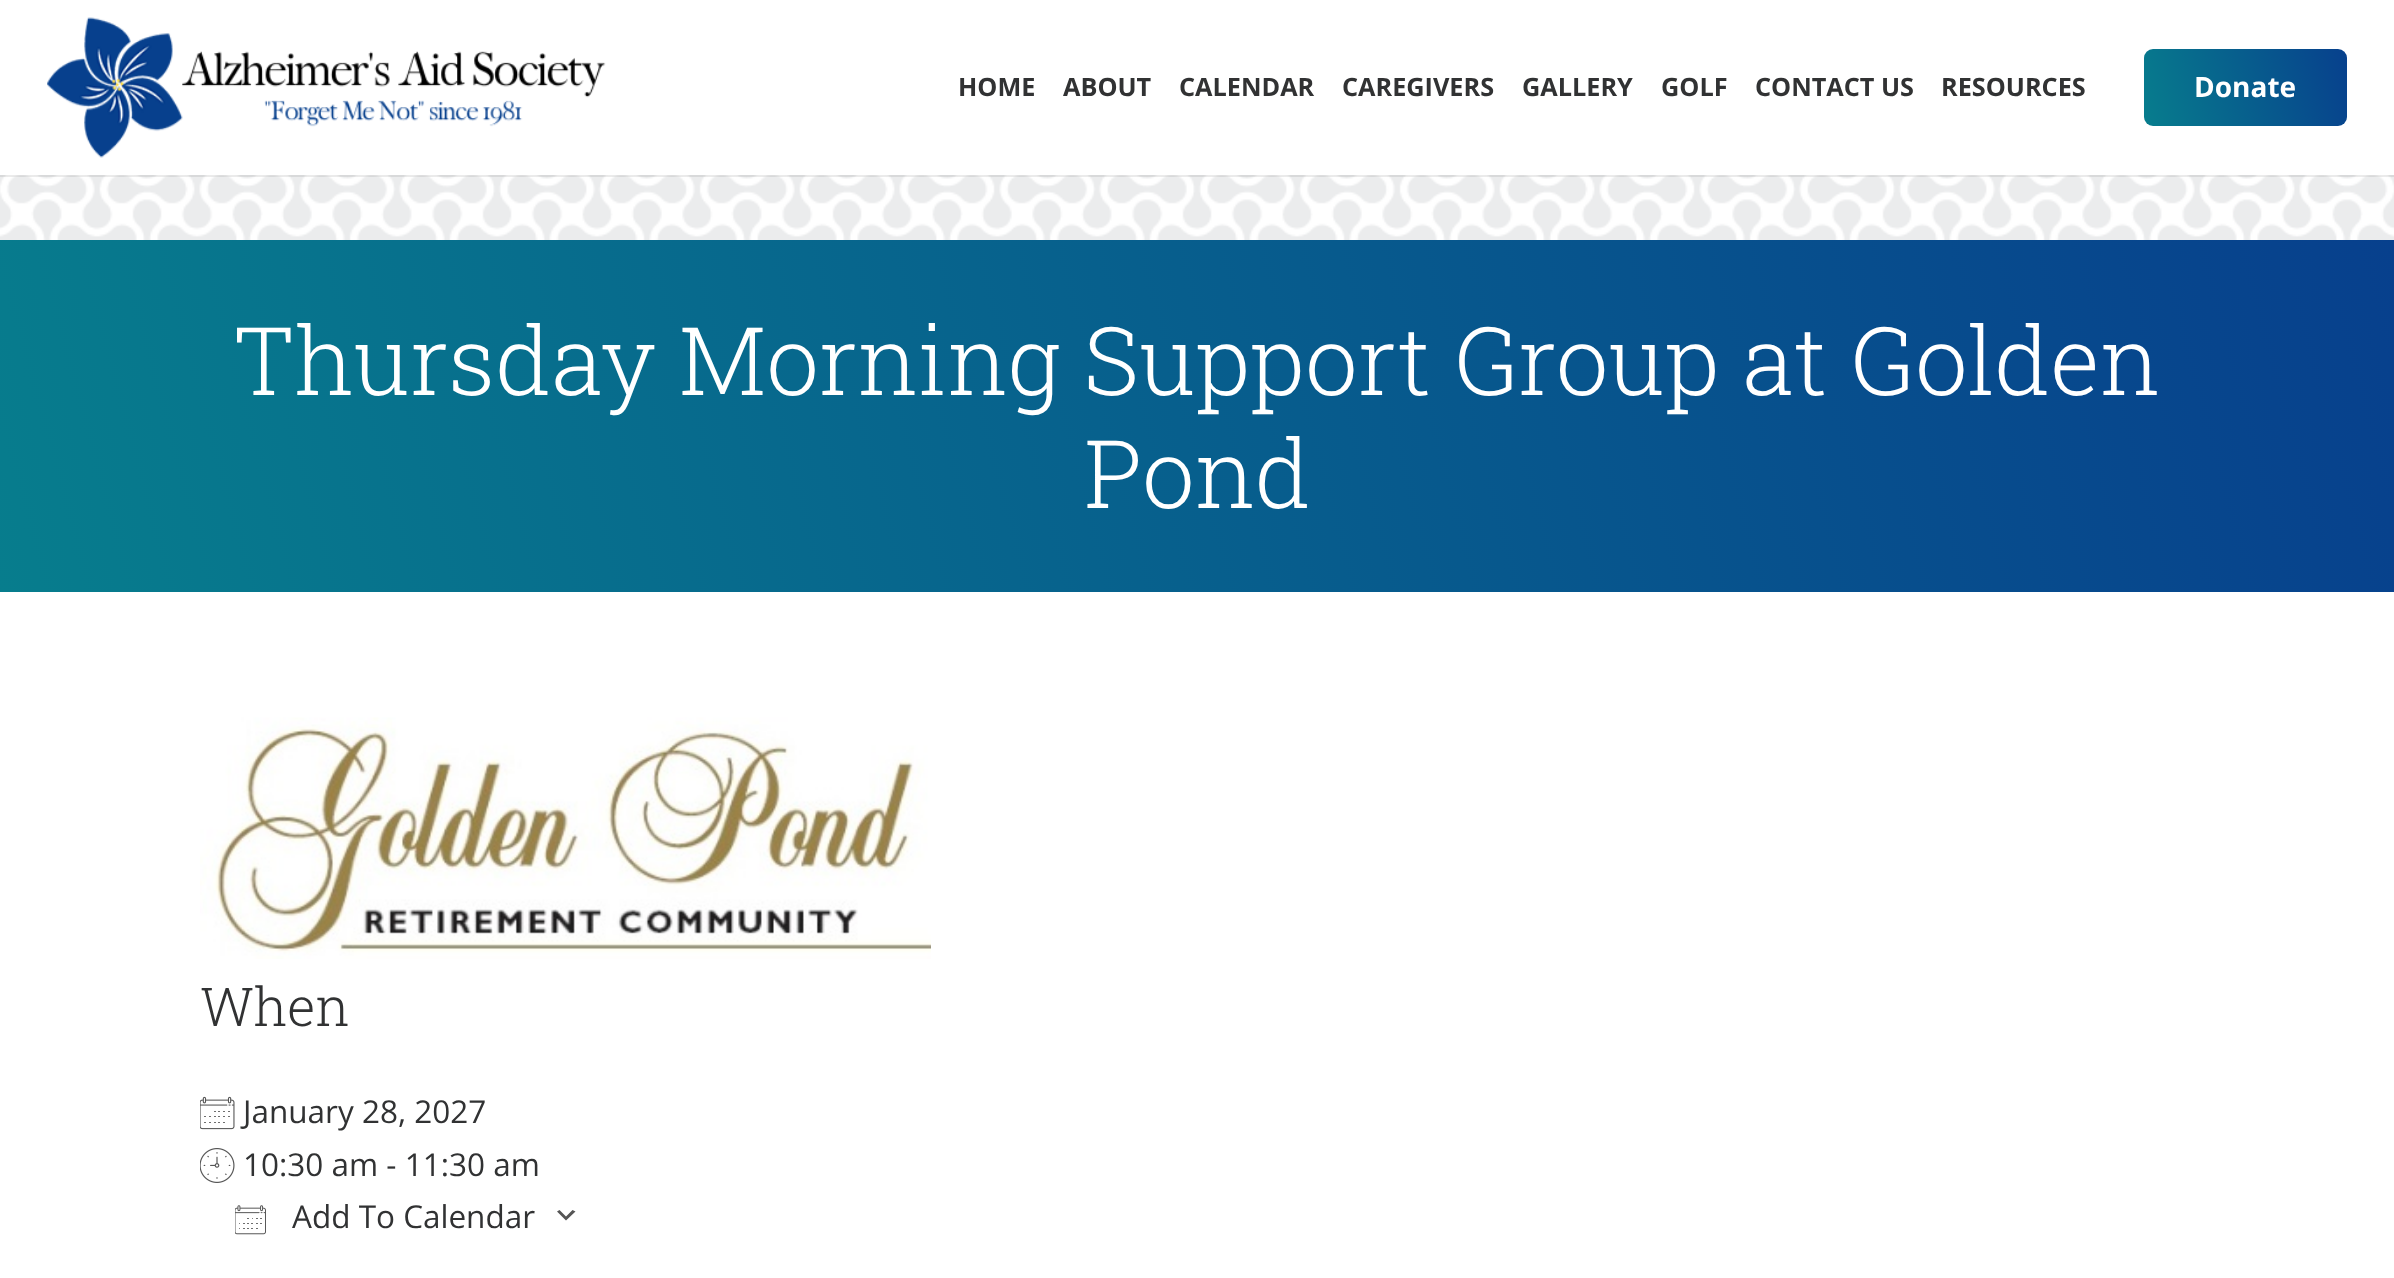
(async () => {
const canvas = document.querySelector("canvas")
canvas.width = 2394
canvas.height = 1278
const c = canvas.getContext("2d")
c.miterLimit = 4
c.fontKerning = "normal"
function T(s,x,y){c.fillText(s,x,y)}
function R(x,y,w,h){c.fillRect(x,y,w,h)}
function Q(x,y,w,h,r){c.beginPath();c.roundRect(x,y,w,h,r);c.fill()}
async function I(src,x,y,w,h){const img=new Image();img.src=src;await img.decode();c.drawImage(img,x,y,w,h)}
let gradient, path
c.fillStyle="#fff"
R(0,0,2394,1278)
await I("2.png",0,175,2394,65)
c.fillStyle="#00000014"
R(0,175,2394,2)
await I("1.png",47,17,559,141)
c.font="bold 25.25px Open Sans"
c.fillStyle="#313233"
T("HOME",958,96)
T("ABOUT",1063,96)
T("CALENDAR",1179,96)
T("CAREGIVERS",1342,96)
T("GALLERY",1522,96)
T("GOLF",1661,96)
T("CONTACT US",1755,96)
T("RESOURCES",1941,96)
gradient = c.createLinearGradient(2141,115,2350,60)
gradient.addColorStop(0,"#077d8d")
gradient.addColorStop(1,"#07408d")
c.fillStyle = gradient
Q(2144,49,203,77,9)
c.font="bold 28px Open Sans"
c.fillStyle="#fff"
T("Donate",2194,97)
gradient = c.createLinearGradient(36,727,2358,105)
gradient.addColorStop(0,"#077d8d")
gradient.addColorStop(1,"#07408d")
c.fillStyle = gradient
R(0,240,2394,352)
c.font="300 94.5px Roboto Slab"
c.fillStyle="#fff"
T("Thursday Morning Support Group at Golden",233,395)
T("Pond",1084,508)
await I("3.png",200,717,731,242)
c.font="300 53.5px Roboto Slab"
c.fillStyle="#313233"
T("When",200,1026)
await I("4.png",200,1096,35,34)
c.font="31.5px Open Sans"
T("January 28, 2027",243,1123)
await I("5.png",200,1148,35,35)
T("10:30 am - 11:30 am",243,1176)
c.fillStyle="#555"
path = new Path2D("M559.5 1210l6.5 6.5l6.5-6.5l3 1.5l-9.5 9l-9-9z")
c.fill(path)
await I("6.png",235,1205,31,30)
c.fillStyle="#313233"
T("Add To Calendar",292,1228)
})()
